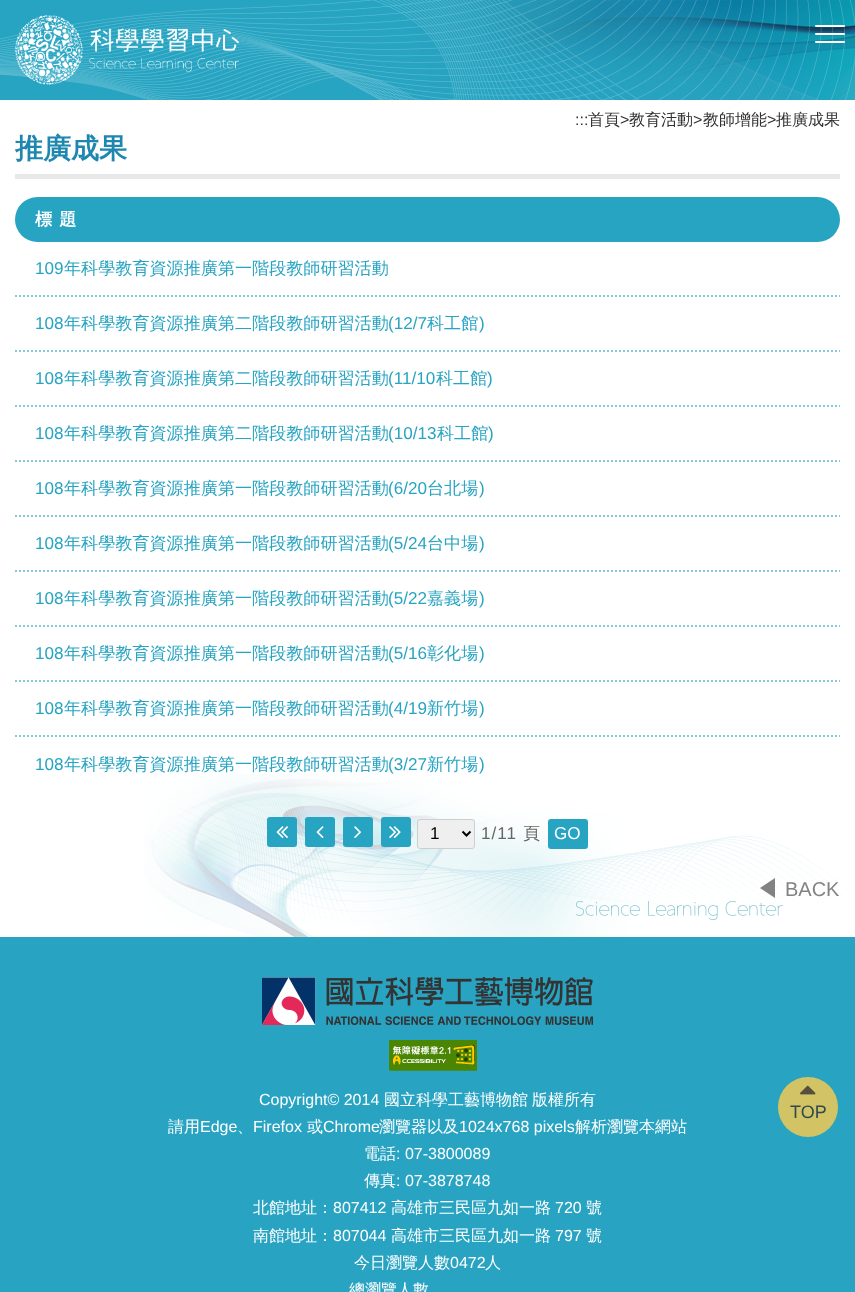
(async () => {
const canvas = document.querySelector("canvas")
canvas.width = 855
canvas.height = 1292
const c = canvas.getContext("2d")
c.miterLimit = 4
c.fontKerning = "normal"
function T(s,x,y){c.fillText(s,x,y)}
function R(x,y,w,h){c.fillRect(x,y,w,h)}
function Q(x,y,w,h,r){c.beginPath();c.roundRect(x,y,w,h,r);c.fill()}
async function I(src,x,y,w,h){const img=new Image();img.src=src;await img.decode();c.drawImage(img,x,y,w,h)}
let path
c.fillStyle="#fff"
R(0,0,855,1292)
await I("1.png",0,0,855,100)
await I("2.png",15,15,224,70)
Q(815,25,30,2,1)
Q(815,33,30,2,1)
Q(815,41,30,2,1)
await I("3.png",706,100,38,21)
c.fillStyle="#e8e8e8"
R(15,174,825,5)
c.font="16px Liberation Sans"
c.fillStyle="#313131"
T(":::",575,125)
c.font="500 16px WenQuanYi Zen Hei"
T("首頁",588,125)
c.font="16px Liberation Sans"
T(">",620,125)
c.font="500 16px WenQuanYi Zen Hei"
T("教育活動",629,125)
c.font="16px Liberation Sans"
T(">",693,125)
c.font="500 16px WenQuanYi Zen Hei"
T("教師增能",703,125)
c.font="16px Liberation Sans"
T(">",767,125)
c.font="500 16px WenQuanYi Zen Hei"
T("推廣成果",776,125)
c.font="bold 28px WenQuanYi Zen Hei"
c.fillStyle="#1e87b0"
T("推廣成果",15,158)
c.fillStyle="#27a4c2"
Q(15,197,825,45,22.5)
c.letterSpacing="1px"
c.font="bold 17.1px WenQuanYi Zen Hei"
c.fillStyle="#fff"
T("標 題",35,225)
path = new Path2D("M15 296h825")
c.strokeStyle="#86cada"
c.lineWidth=2
c.setLineDash([2,2])
c.stroke(path)
c.letterSpacing="0px"
c.font="17.1px Liberation Sans"
c.fillStyle="#27a4c2"
T("109",35,274)
c.font="500 17.1px WenQuanYi Zen Hei"
T("年科學教育資源推廣第一階段教師研習活動",64,274)
path = new Path2D("M15 351h825")
c.stroke(path)
c.font="17.1px Liberation Sans"
T("108",35,329)
c.font="500 17.1px WenQuanYi Zen Hei"
T("年科學教育資源推廣第二階段教師研習活動",64,329)
c.font="17.1px Liberation Sans"
T("(12/7",388,329)
c.font="500 17.1px WenQuanYi Zen Hei"
T("科工館",427,329)
c.font="17.1px Liberation Sans"
T(")",479,329)
path = new Path2D("M15 406h825")
c.stroke(path)
T("108",35,384)
c.font="500 17.1px WenQuanYi Zen Hei"
T("年科學教育資源推廣第二階段教師研習活動",64,384)
c.font="17.1px Liberation Sans"
T("(11/10",388,384)
c.font="500 17.1px WenQuanYi Zen Hei"
T("科工館",436,384)
c.font="17.1px Liberation Sans"
T(")",487,384)
path = new Path2D("M15 461h825")
c.stroke(path)
T("108",35,439)
c.font="500 17.1px WenQuanYi Zen Hei"
T("年科學教育資源推廣第二階段教師研習活動",64,439)
c.font="17.1px Liberation Sans"
T("(10/13",388,439)
c.font="500 17.1px WenQuanYi Zen Hei"
T("科工館",437,439)
c.font="17.1px Liberation Sans"
T(")",488,439)
path = new Path2D("M15 516h825")
c.stroke(path)
T("108",35,494)
c.font="500 17.1px WenQuanYi Zen Hei"
T("年科學教育資源推廣第一階段教師研習活動",64,494)
c.font="17.1px Liberation Sans"
T("(6/20",388,494)
c.font="500 17.1px WenQuanYi Zen Hei"
T("台北場",427,494)
c.font="17.1px Liberation Sans"
T(")",479,494)
path = new Path2D("M15 571h825")
c.stroke(path)
T("108",35,549)
c.font="500 17.1px WenQuanYi Zen Hei"
T("年科學教育資源推廣第一階段教師研習活動",64,549)
c.font="17.1px Liberation Sans"
T("(5/24",388,549)
c.font="500 17.1px WenQuanYi Zen Hei"
T("台中場",427,549)
c.font="17.1px Liberation Sans"
T(")",479,549)
path = new Path2D("M15 626h825")
c.stroke(path)
T("108",35,604)
c.font="500 17.1px WenQuanYi Zen Hei"
T("年科學教育資源推廣第一階段教師研習活動",64,604)
c.font="17.1px Liberation Sans"
T("(5/22",388,604)
c.font="500 17.1px WenQuanYi Zen Hei"
T("嘉義場",427,604)
c.font="17.1px Liberation Sans"
T(")",479,604)
path = new Path2D("M15 681h825")
c.stroke(path)
T("108",35,659)
c.font="500 17.1px WenQuanYi Zen Hei"
T("年科學教育資源推廣第一階段教師研習活動",64,659)
c.font="17.1px Liberation Sans"
T("(5/16",388,659)
c.font="500 17.1px WenQuanYi Zen Hei"
T("彰化場",427,659)
c.font="17.1px Liberation Sans"
T(")",479,659)
path = new Path2D("M15 736h825")
c.stroke(path)
T("108",35,714)
c.font="500 17.1px WenQuanYi Zen Hei"
T("年科學教育資源推廣第一階段教師研習活動",64,714)
c.font="17.1px Liberation Sans"
T("(4/19",388,714)
c.font="500 17.1px WenQuanYi Zen Hei"
T("新竹場",427,714)
c.font="17.1px Liberation Sans"
T(")",479,714)
T("108",35,770)
c.font="500 17.1px WenQuanYi Zen Hei"
T("年科學教育資源推廣第一階段教師研習活動",64,770)
c.font="17.1px Liberation Sans"
T("(3/27",388,770)
c.font="500 17.1px WenQuanYi Zen Hei"
T("新竹場",427,770)
c.font="17.1px Liberation Sans"
T(")",479,770)
await I("9.png",144,774,706,163)
Q(267,817,30,30,3)
await I("4.png",276,826,12,12)
Q(305,817,30,30,3)
await I("5.png",316,826,8,12)
Q(343,817,30,30,3)
await I("6.png",354,826,7,12)
Q(381,817,30,30,3)
await I("7.png",389,826,12,12)
c.fillStyle="#efefef"
c.beginPath()
c.roundRect(417.5,819.5,57,29,2.5)
c.fill()
c.strokeStyle="#cecece"
c.lineWidth=1
c.setLineDash([])
c.stroke()
path = new Path2D("M462.5 831.5l4 4l4-4")
c.strokeStyle="#000"
c.lineWidth=2
c.stroke(path)
c.fillStyle="#000"
T("1",430,839)
c.letterSpacing="1px"
c.fillStyle="#666"
T("1/11",481,839)
c.font="500 17.1px WenQuanYi Zen Hei"
T("頁",523,839)
c.fillStyle="#27a4c2"
Q(548,819,40,30,3)
c.letterSpacing="0px"
c.font="17.1px Liberation Sans"
c.fillStyle="#fff"
T("GO",554,839)
c.fillStyle="#828282"
path = new Path2D("M775 878v20l-15-10z")
c.fill(path)
c.font="20px Liberation Sans"
T("BACK",785,896)
c.fillStyle="#28a4c2"
R(0,937,855,355)
c.fillStyle="#d2c365"
c.beginPath()
c.arc(808,1107,30,0,7)
c.fill()
await I("8.png",800,1085,16,10)
c.font="18px Liberation Sans"
c.fillStyle="#314a50"
T("TOP",790,1118)
await I("10.png",262,977,331,48)
await I("11.png",389,1040,88,31)
c.font="16px Liberation Sans"
c.fillStyle="#fff"
T("Copyright© 2014",259,1105)
c.font="500 16px WenQuanYi Zen Hei"
T("國立科學工藝博物館",384,1105)
T("版權所有",532,1105)
T("請用",168,1132)
c.font="16px Liberation Sans"
T("Edge",200,1132)
c.font="500 16px WenQuanYi Zen Hei"
T("、",237,1132)
c.font="16px Liberation Sans"
T("Firefox",253,1132)
c.font="500 16px WenQuanYi Zen Hei"
T("或",307,1132)
c.font="16px Liberation Sans"
T("Chrome",323,1132)
c.font="500 16px WenQuanYi Zen Hei"
T("瀏覽器以及",379,1132)
c.font="16px Liberation Sans"
T("1024x768 pixels",459,1132)
c.font="500 16px WenQuanYi Zen Hei"
T("解析瀏覽本網站",575,1132)
T("電話",364,1159)
c.font="16px Liberation Sans"
T(": 07-3800089",396,1159)
c.font="500 16px WenQuanYi Zen Hei"
T("傳真",364,1186)
c.font="16px Liberation Sans"
T(": 07-3878748",396,1186)
c.font="500 16px WenQuanYi Zen Hei"
T("北館地址：",253,1213)
c.font="16px Liberation Sans"
T("807412",333,1213)
c.font="500 16px WenQuanYi Zen Hei"
T("高雄市三民區九如一路",391,1213)
c.font="16px Liberation Sans"
T("720",555,1213)
c.font="500 16px WenQuanYi Zen Hei"
T("號",586,1213)
T("南館地址：",253,1241)
c.font="16px Liberation Sans"
T("807044",333,1241)
c.font="500 16px WenQuanYi Zen Hei"
T("高雄市三民區九如一路",391,1241)
c.font="16px Liberation Sans"
T("797",555,1241)
c.font="500 16px WenQuanYi Zen Hei"
T("號",586,1241)
T("今日瀏覽人數",354,1268)
c.font="16px Liberation Sans"
T("0472",450,1268)
c.font="500 16px WenQuanYi Zen Hei"
T("人",485,1268)
T("總瀏覽人數",349,1295)
})()
